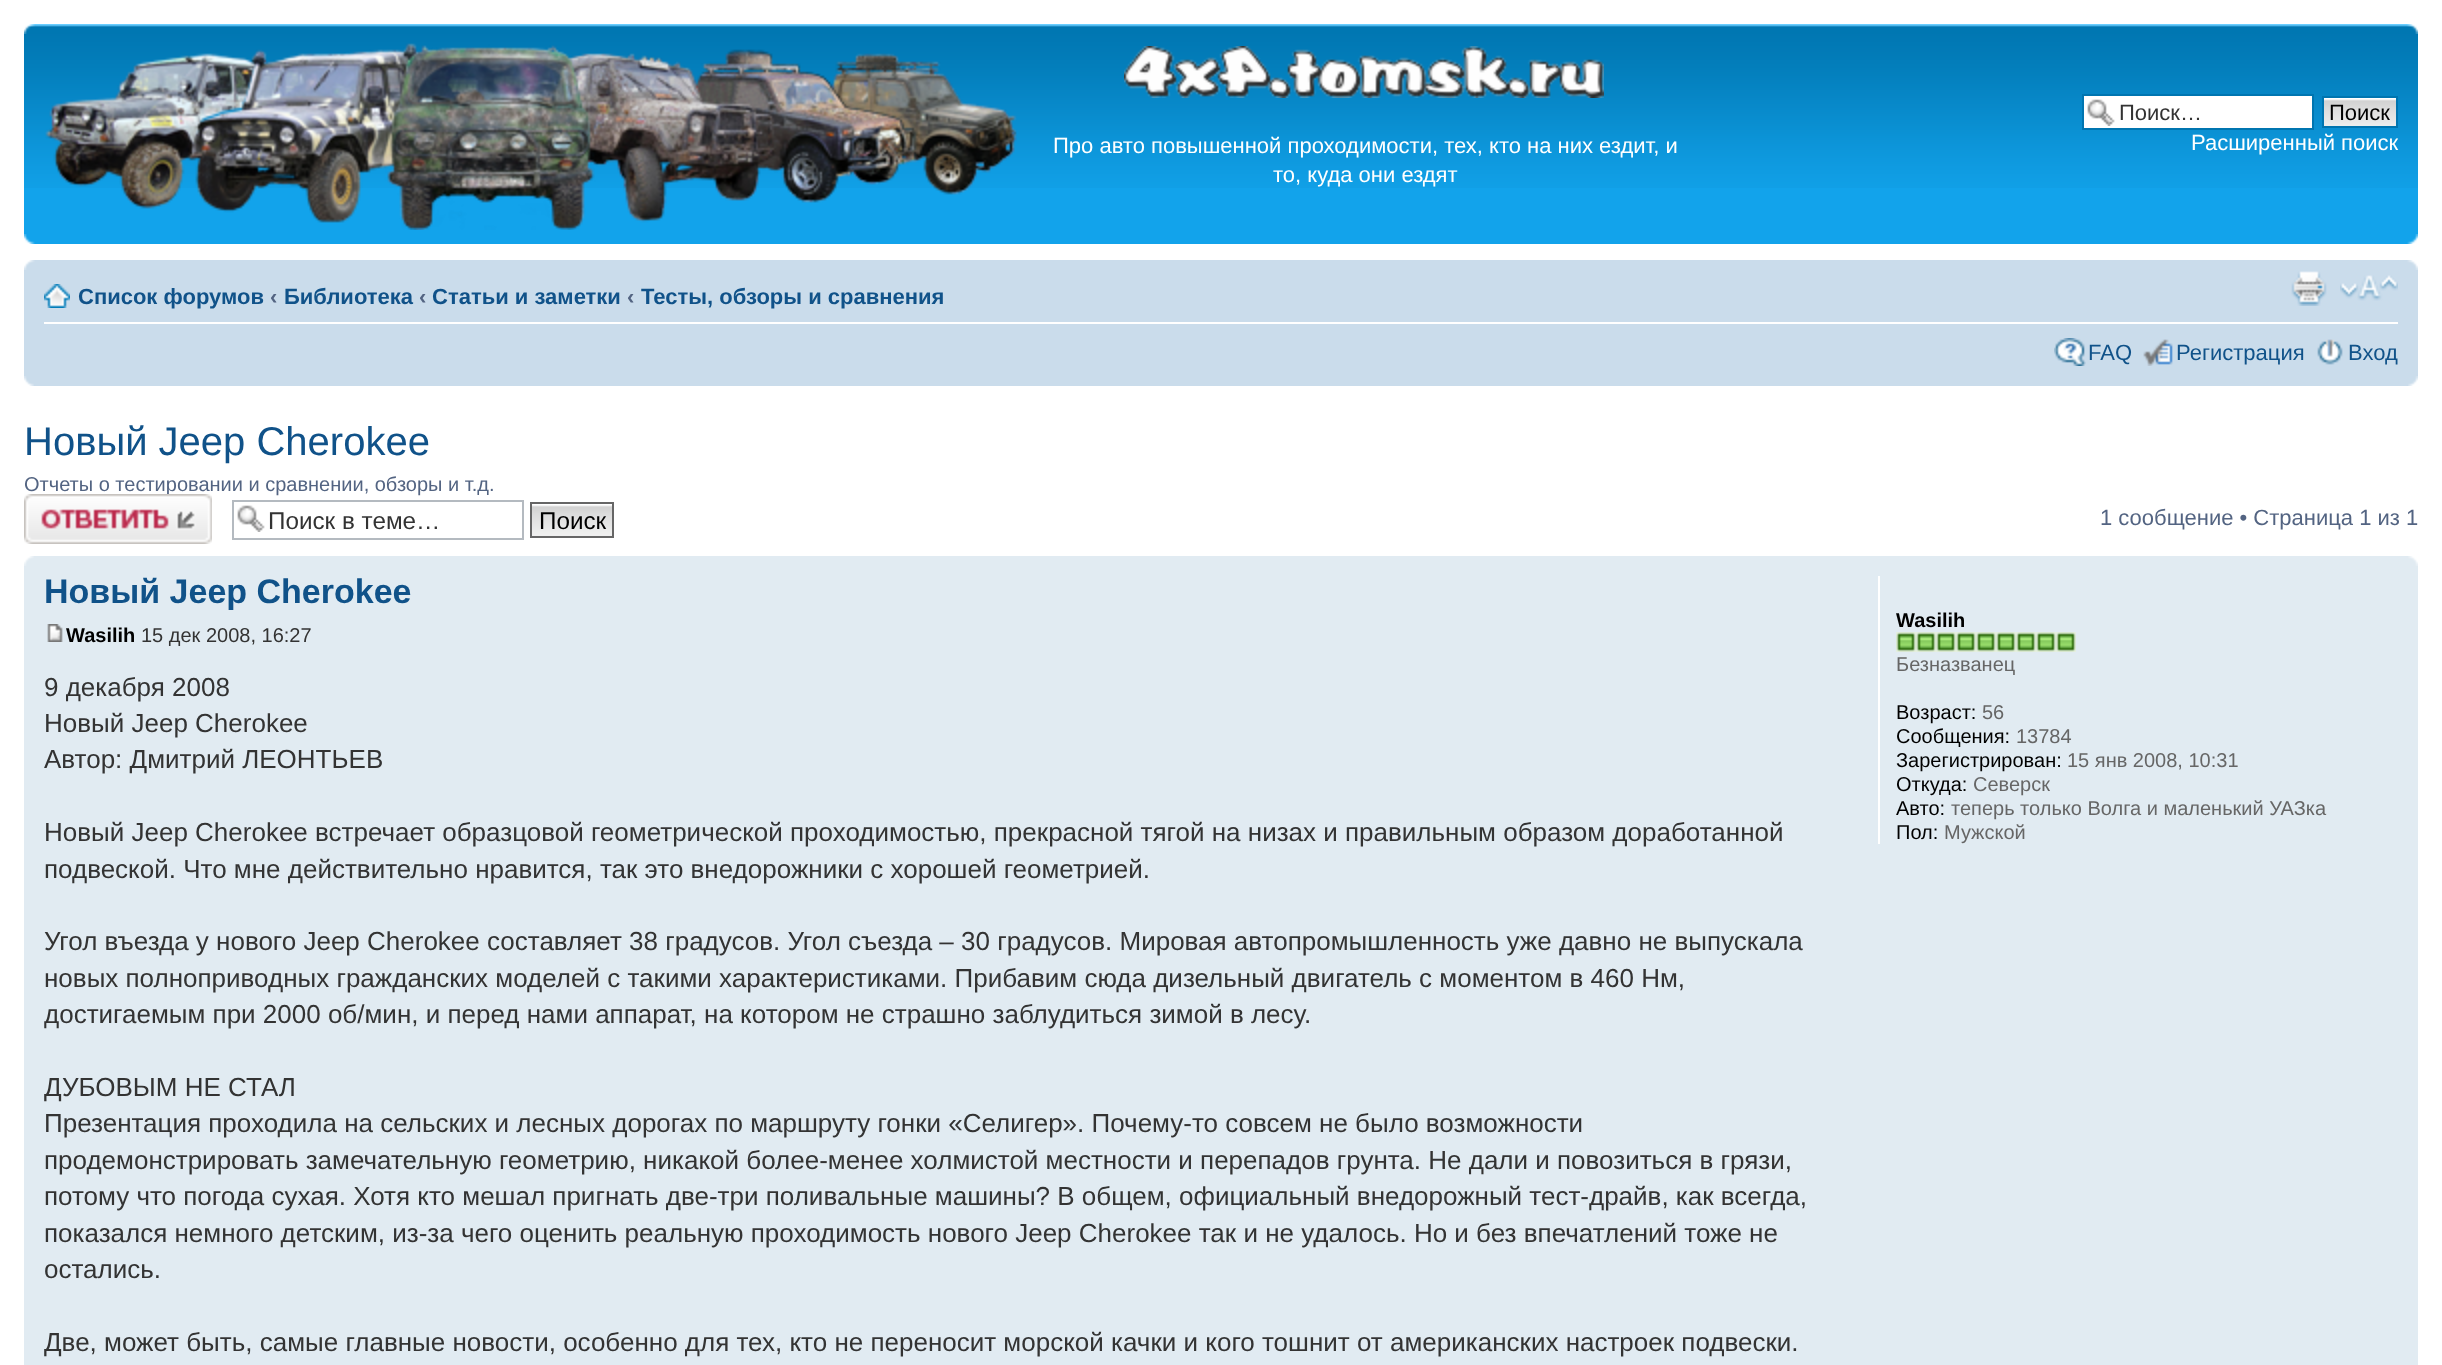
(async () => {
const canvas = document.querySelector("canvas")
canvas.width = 2442
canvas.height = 1365
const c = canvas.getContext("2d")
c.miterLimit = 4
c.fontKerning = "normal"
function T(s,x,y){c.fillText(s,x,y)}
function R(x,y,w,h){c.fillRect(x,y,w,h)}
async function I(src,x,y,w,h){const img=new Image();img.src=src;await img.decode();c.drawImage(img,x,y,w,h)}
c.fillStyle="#fff"
R(0,0,2442,1365)
c.fillStyle="#12a3eb"
R(24,188,2394,56)
await I("1.png",24,24,2394,164)
await I("2.png",24,24,11,10)
await I("3.png",2407,24,11,10)
c.fillStyle="#fff"
R(2084,96,228,32)
await I("4.png",2087,99,28,27)
c.strokeStyle="#0075b0"
c.lineWidth=2
c.strokeRect(2083,95,230,34)
c.font="22px Liberation Sans"
c.fillStyle="#333"
T("Поиск…",2119,120)
await I("5.png",2324,98,72,28)
c.strokeRect(2323,97,74,30)
c.fillStyle="#000"
T("Поиск",2329,120)
c.fillStyle="#fff"
T("Расширенный поиск",2191,150)
await I("6.png",45,43,972,187)
await I("7.png",1124,46,480,52)
T("Про авто повышенной проходимости, тех, кто на них ездит, и",1053,153)
T("то, куда они ездят",1273,182)
await I("8.png",24,234,11,10)
await I("9.png",2407,234,11,10)
c.fillStyle="#cadceb"
R(24,260,2394,126)
await I("10.png",24,260,11,10)
await I("11.png",2407,260,11,10)
c.fillStyle="#fff"
R(44,322,2354,2)
await I("12.png",44,284,26,24)
c.font="bold 22px Liberation Sans"
c.fillStyle="#105289"
T("Список форумов",78,304)
c.fillStyle="#536482"
T("‹",270,304)
c.fillStyle="#105289"
T("Библиотека",284,304)
c.fillStyle="#536482"
T("‹",419,304)
c.fillStyle="#105289"
T("Статьи и заметки",432,304)
c.fillStyle="#536482"
T("‹",627,304)
c.fillStyle="#105289"
T("Тесты, обзоры и сравнения",641,304)
await I("13.png",2291,271,36,35)
await I("14.png",2340,275,58,26)
await I("15.png",2054,338,32,28)
c.font="22px Liberation Sans"
T("FAQ",2088,360)
await I("16.png",2143,339,30,27)
T("Регистрация",2176,360)
await I("17.png",2317,339,26,26)
T("Вход",2348,360)
await I("18.png",24,376,10,10)
await I("19.png",2408,376,10,10)
c.font="40px Liberation Sans"
T("Новый Jeep Cherokee",24,455)
c.font="20px Liberation Sans"
c.fillStyle="#536482"
T("Отчеты о тестировании и сравнении, обзоры и т.д.",24,491)
await I("20.png",24,494,188,50)
await I("4.png",237,505,28,27)
c.strokeStyle="#b4bac0"
c.strokeRect(233,501,290,38)
c.font="24.25px Liberation Sans"
c.fillStyle="#333"
T("Поиск в теме…",268,529)
await I("21.png",532,504,80,32)
c.strokeStyle="#666"
c.strokeRect(531,503,82,34)
c.fillStyle="#000"
T("Поиск",539,529)
c.font="22px Liberation Sans"
c.fillStyle="#536482"
T("1 сообщение • Страница 1 из 1",2100,525)
c.fillStyle="#e1ebf2"
R(24,556,2394,809)
await I("22.png",24,556,10,10)
await I("23.png",2408,556,10,10)
c.font="bold 34px Liberation Sans"
c.fillStyle="#105289"
T("Новый Jeep Cherokee",44,603)
await I("24.png",47,624,16,18)
c.font="bold 20px Liberation Sans"
c.fillStyle="#000"
T("Wasilih",66,642)
c.font="20px Liberation Sans"
c.fillStyle="#333"
T("15 дек 2008, 16:27",141,642)
c.font="26px Liberation Sans"
T("9 декабря 2008",44,696)
T("Новый Jeep Cherokee",44,732)
T("Автор: Дмитрий ЛЕОНТЬЕВ",44,768)
T("Новый Jeep Cherokee встречает образцовой геометрической проходимостью, прекрасной тягой на низах и правильным образом доработанной",44,841)
T("подвеской. Что мне действительно нравится, так это внедорожники с хорошей геометрией.",44,878)
T("Угол въезда у нового Jeep Cherokee составляет 38 градусов. Угол съезда – 30 градусов. Мировая автопромышленность уже давно не выпускала",44,950)
T("новых полноприводных гражданских моделей с такими характеристиками. Прибавим сюда дизельный двигатель с моментом в 460 Нм,",44,987)
T("достигаемым при 2000 об/мин, и перед нами аппарат, на котором не страшно заблудиться зимой в лесу.",44,1023)
T("ДУБОВЫМ НЕ СТАЛ",44,1096)
T("Презентация проходила на сельских и лесных дорогах по маршруту гонки «Селигер». Почему-то совсем не было возможности",44,1132)
T("продемонстрировать замечательную геометрию, никакой более-менее холмистой местности и перепадов грунта. Не дали и повозиться в грязи,",44,1169)
T("потому что погода сухая. Хотя кто мешал пригнать две-три поливальные машины? В общем, официальный внедорожный тест-драйв, как всегда,",44,1205)
T("показался немного детским, из-за чего оценить реальную проходимость нового Jeep Cherokee так и не удалось. Но и без впечатлений тоже не",44,1242)
T("остались.",44,1278)
T("Две, может быть, самые главные новости, особенно для тех, кто не переносит морской качки и кого тошнит от американских настроек подвески.",44,1351)
c.fillStyle="#fff"
R(1878,576,2,268)
c.font="bold 20px Liberation Sans"
c.fillStyle="#000"
T("Wasilih",1896,627)
await I("25.png",1896,632,20,20)
await I("25.png",1916,632,20,20)
await I("25.png",1936,632,20,20)
await I("25.png",1956,632,20,20)
await I("25.png",1976,632,20,20)
await I("25.png",1996,632,20,20)
await I("25.png",2016,632,20,20)
await I("25.png",2036,632,20,20)
await I("25.png",2056,632,20,20)
c.font="20px Liberation Sans"
c.fillStyle="#666"
T("Безназванец",1896,671)
c.fillStyle="#000"
T("Возраст:",1896,719)
c.fillStyle="#666"
T("56",1982,719)
c.fillStyle="#000"
T("Сообщения:",1896,743)
c.fillStyle="#666"
T("13784",2016,743)
c.fillStyle="#000"
T("Зарегистрирован:",1896,767)
c.fillStyle="#666"
T("15 янв 2008, 10:31",2067,767)
c.fillStyle="#000"
T("Откуда:",1896,791)
c.fillStyle="#666"
T("Северск",1973,791)
c.fillStyle="#000"
T("Авто:",1896,815)
c.fillStyle="#666"
T("теперь только Волга и маленький УАЗка",1951,815)
c.fillStyle="#000"
T("Пол:",1896,839)
c.fillStyle="#666"
T("Мужской",1944,839)
})()
